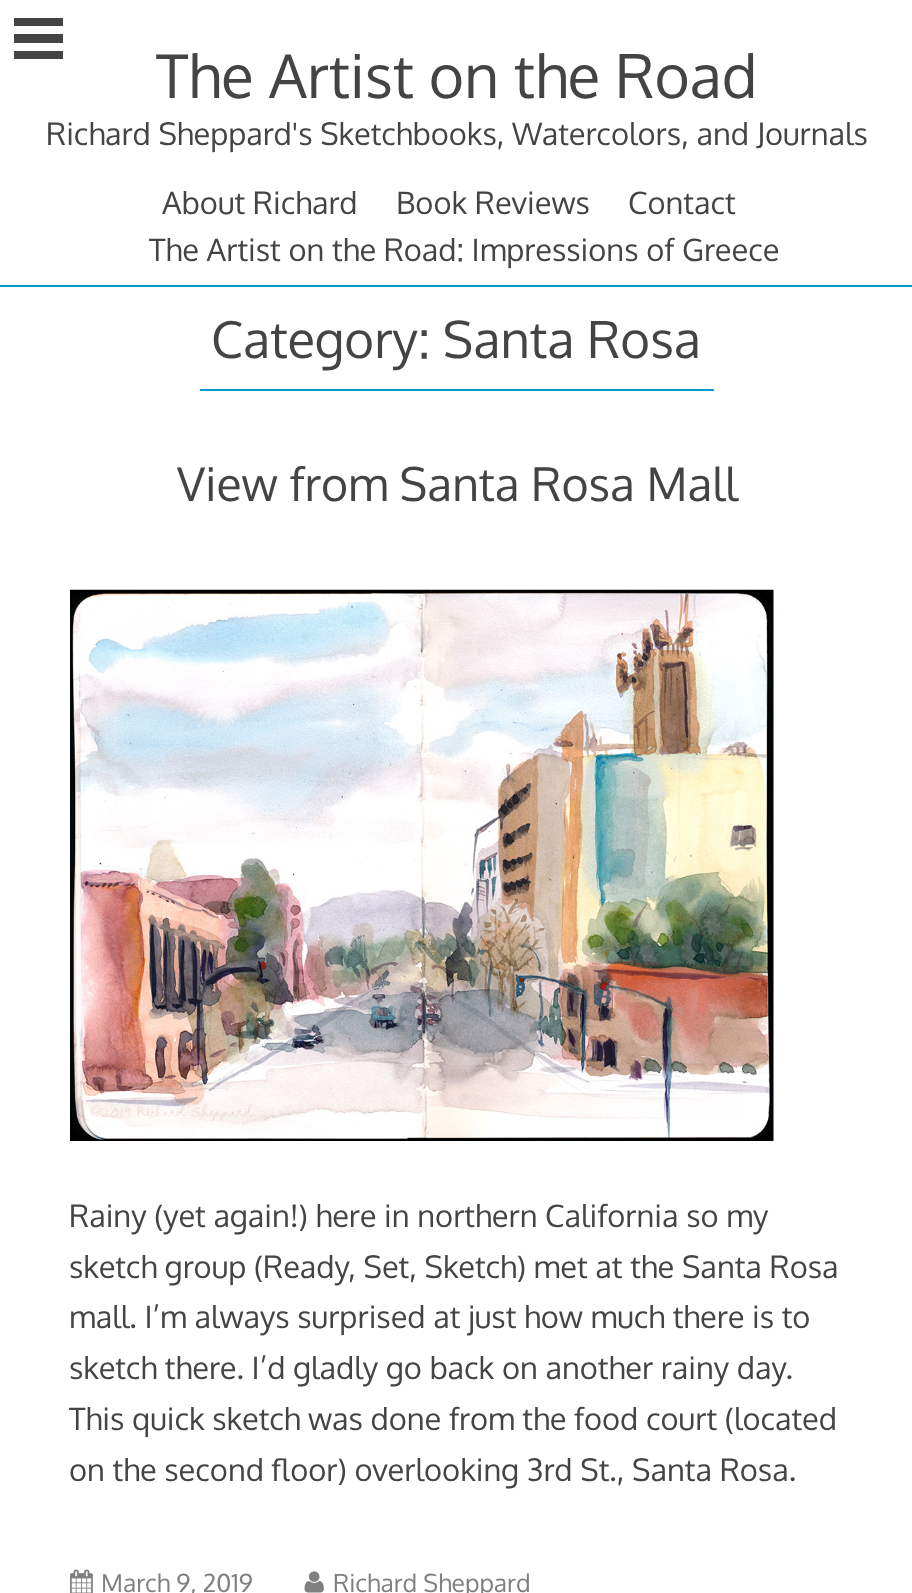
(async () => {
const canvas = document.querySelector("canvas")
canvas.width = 912
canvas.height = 1593
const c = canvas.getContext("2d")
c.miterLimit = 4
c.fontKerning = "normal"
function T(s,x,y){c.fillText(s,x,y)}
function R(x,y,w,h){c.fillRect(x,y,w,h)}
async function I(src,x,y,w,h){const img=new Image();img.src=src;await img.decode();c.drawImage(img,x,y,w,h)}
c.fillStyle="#fff"
R(0,0,912,1593)
c.fillStyle="#444"
R(14,18,49,8)
R(14,34,49,9)
R(14,51,49,8)
c.fillStyle="#009bcd"
R(0,285,912,2)
c.font="60.25px Oxygen"
c.fillStyle="#444"
T("The Artist on the Road",156,98)
c.font="30.8px Oxygen"
T("Richard Sheppard's Sketchbooks, Watercolors, and Journals",46,145)
T("About Richard",162,214)
T("Book Reviews",396,214)
T("Contact",628,214)
T("The Artist on the Road: Impressions of Greece",149,261)
c.fillStyle="#009bcd"
R(200,389,514,2)
c.font="50.75px Oxygen"
c.fillStyle="#444"
T("Category: Santa Rosa",211,358)
c.font="46.25px Oxygen"
T("View from Santa Rosa Mall",177,501)
await I("1.png",70,589,704,552)
c.font="30.8px Oxygen"
T("Rainy (yet again!) here in northern California so my",69,1227)
T("sketch group (Ready, Set, Sketch) met at the Santa Rosa",69,1278)
T("mall. I’m always surprised at just how much there is to",69,1328)
T("sketch there. I’d gladly go back on another rainy day.",69,1379)
T("This quick sketch was done from the food court (located",69,1430)
T("on the second floor) overlooking 3rd St., Santa Rosa.",69,1481)
await I("2.png",70,1569,23,24)
c.font="24.75px Oxygen"
c.fillStyle="#808080"
T("March 9, 2019",101,1592)
await I("3.png",304,1571,20,22)
T("Richard Sheppard",333,1592)
})()
